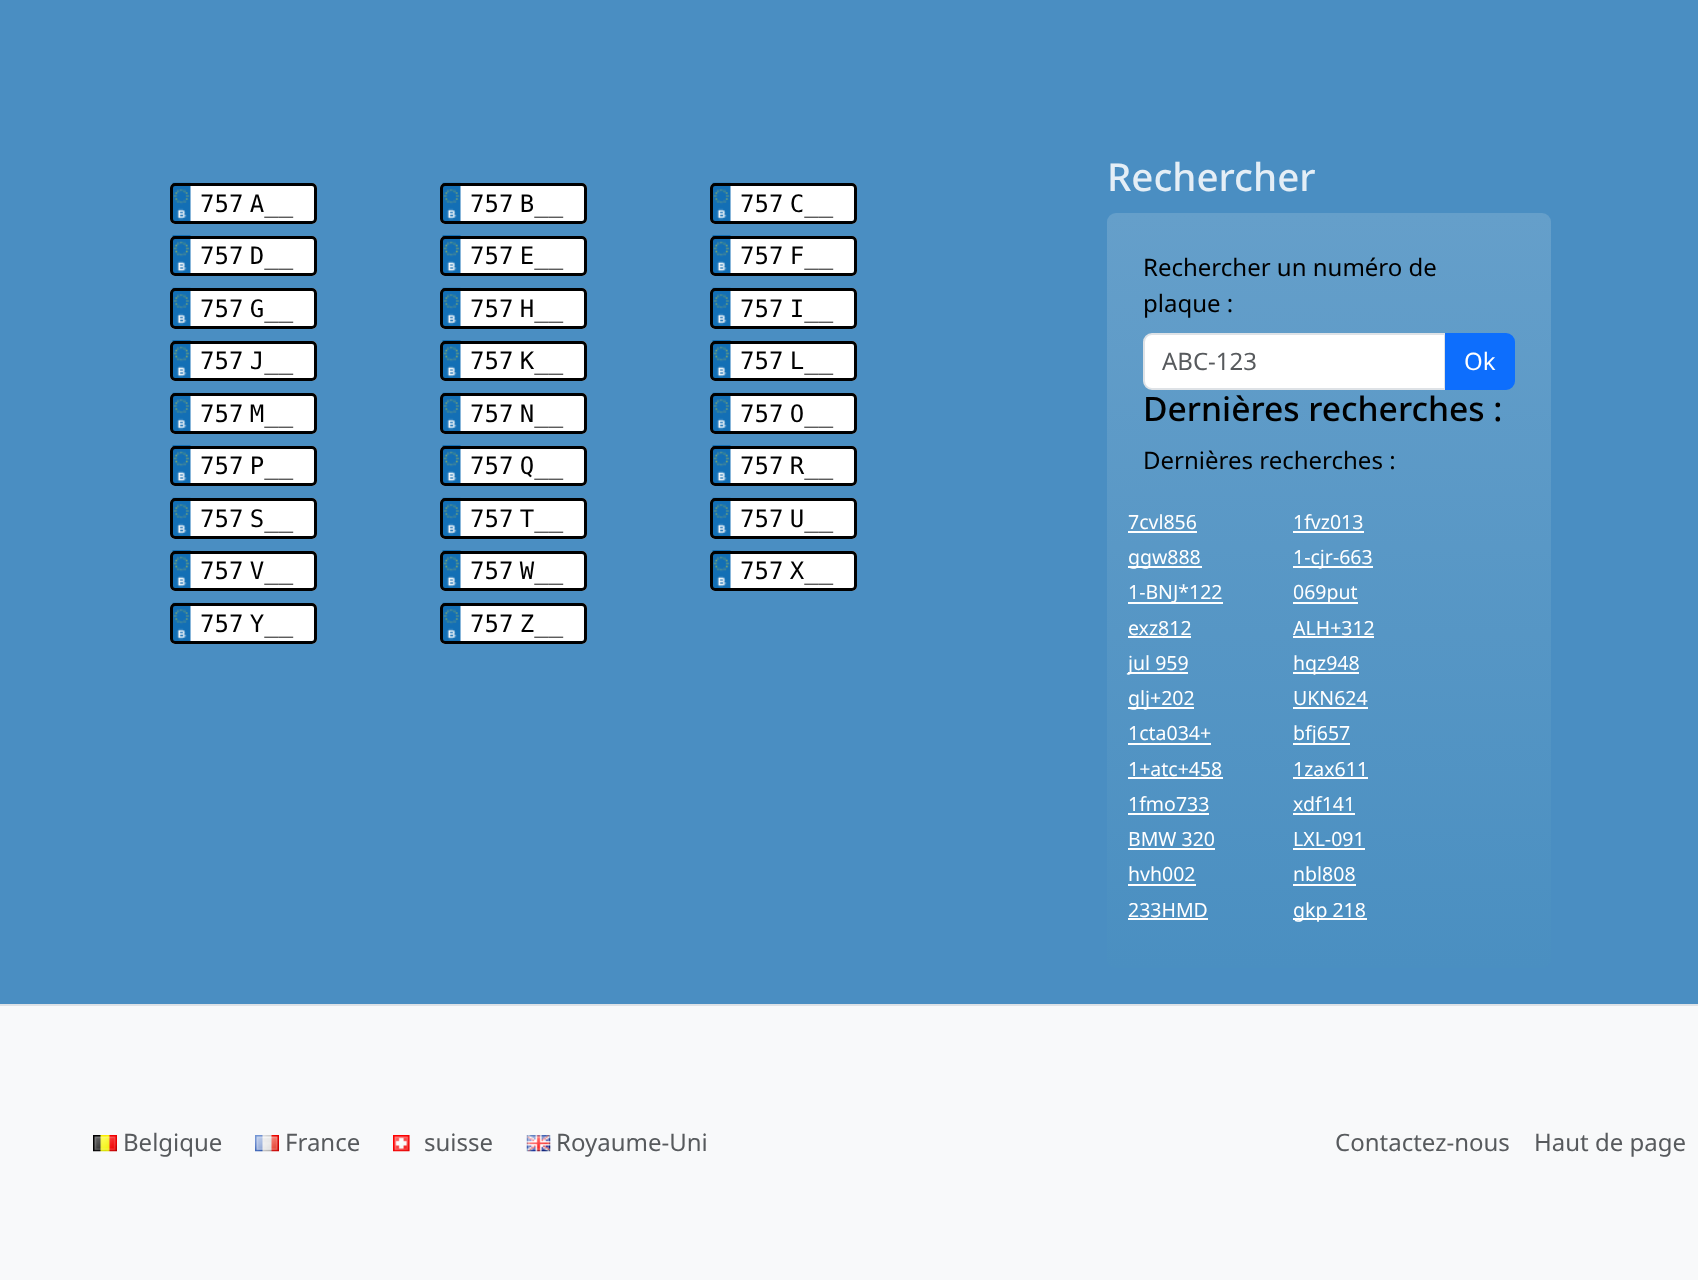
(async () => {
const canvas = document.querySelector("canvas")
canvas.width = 1698
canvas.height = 1280
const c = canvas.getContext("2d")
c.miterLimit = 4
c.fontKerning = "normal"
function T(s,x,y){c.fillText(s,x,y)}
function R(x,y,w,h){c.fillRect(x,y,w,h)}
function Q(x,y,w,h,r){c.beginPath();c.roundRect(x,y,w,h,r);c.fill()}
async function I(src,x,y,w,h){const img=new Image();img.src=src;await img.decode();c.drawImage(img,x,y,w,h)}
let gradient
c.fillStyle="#4a8ec2"
R(0,0,1698,1280)
c.fillStyle="#fff"
Q(170,183,147,41,5)
await I("1.png",172,182,19,39)
c.beginPath()
c.roundRect(171.5,184.5,144,38,3.5)
c.strokeStyle="#000"
c.lineWidth=3
c.stroke()
c.wordSpacing="-8px"
c.font="24px DejaVu Sans Mono"
c.fillStyle="#000"
T("757 A__",200,212)
c.fillStyle="#fff"
Q(440,183,147,41,5)
await I("2.png",442,182,19,39)
c.beginPath()
c.roundRect(441.5,184.5,144,38,3.5)
c.stroke()
c.fillStyle="#000"
T("757 B__",470,212)
c.fillStyle="#fff"
Q(710,183,147,41,5)
await I("2.png",712,182,19,39)
c.beginPath()
c.roundRect(711.5,184.5,144,38,3.5)
c.stroke()
c.fillStyle="#000"
T("757 C__",740,212)
c.fillStyle="#fff"
Q(170,236,147,40,5)
await I("3.png",172,235,19,41)
c.beginPath()
c.roundRect(171.5,237.5,144,37,3.5)
c.stroke()
c.fillStyle="#000"
T("757 D__",200,264)
c.fillStyle="#fff"
Q(440,236,147,40,5)
await I("4.png",442,235,19,41)
c.beginPath()
c.roundRect(441.5,237.5,144,37,3.5)
c.stroke()
c.fillStyle="#000"
T("757 E__",470,264)
c.fillStyle="#fff"
Q(710,236,147,40,5)
await I("4.png",712,235,19,41)
c.beginPath()
c.roundRect(711.5,237.5,144,37,3.5)
c.stroke()
c.fillStyle="#000"
T("757 F__",740,264)
c.fillStyle="#fff"
Q(170,288,147,41,5)
await I("1.png",172,287,19,39)
c.beginPath()
c.roundRect(171.5,289.5,144,38,3.5)
c.stroke()
c.fillStyle="#000"
T("757 G__",200,317)
c.fillStyle="#fff"
Q(440,288,147,41,5)
await I("2.png",442,287,19,39)
c.beginPath()
c.roundRect(441.5,289.5,144,38,3.5)
c.stroke()
c.fillStyle="#000"
T("757 H__",470,317)
c.fillStyle="#fff"
Q(710,288,147,41,5)
await I("2.png",712,287,19,39)
c.beginPath()
c.roundRect(711.5,289.5,144,38,3.5)
c.stroke()
c.fillStyle="#000"
T("757 I__",740,317)
c.fillStyle="#fff"
Q(170,341,147,40,5)
await I("3.png",172,340,19,41)
c.beginPath()
c.roundRect(171.5,342.5,144,37,3.5)
c.stroke()
c.fillStyle="#000"
T("757 J__",200,369)
c.fillStyle="#fff"
Q(440,341,147,40,5)
await I("4.png",442,340,19,41)
c.beginPath()
c.roundRect(441.5,342.5,144,37,3.5)
c.stroke()
c.fillStyle="#000"
T("757 K__",470,369)
c.fillStyle="#fff"
Q(710,341,147,40,5)
await I("4.png",712,340,19,41)
c.beginPath()
c.roundRect(711.5,342.5,144,37,3.5)
c.stroke()
c.fillStyle="#000"
T("757 L__",740,369)
c.fillStyle="#fff"
Q(170,393,147,41,5)
await I("1.png",172,392,19,39)
c.beginPath()
c.roundRect(171.5,394.5,144,38,3.5)
c.stroke()
c.fillStyle="#000"
T("757 M__",200,422)
c.fillStyle="#fff"
Q(440,393,147,41,5)
await I("2.png",442,392,19,39)
c.beginPath()
c.roundRect(441.5,394.5,144,38,3.5)
c.stroke()
c.fillStyle="#000"
T("757 N__",470,422)
c.fillStyle="#fff"
Q(710,393,147,41,5)
await I("2.png",712,392,19,39)
c.beginPath()
c.roundRect(711.5,394.5,144,38,3.5)
c.stroke()
c.fillStyle="#000"
T("757 O__",740,422)
c.fillStyle="#fff"
Q(170,446,147,40,5)
await I("3.png",172,445,19,41)
c.beginPath()
c.roundRect(171.5,447.5,144,37,3.5)
c.stroke()
c.fillStyle="#000"
T("757 P__",200,474)
c.fillStyle="#fff"
Q(440,446,147,40,5)
await I("4.png",442,445,19,41)
c.beginPath()
c.roundRect(441.5,447.5,144,37,3.5)
c.stroke()
c.fillStyle="#000"
T("757 Q__",470,474)
c.fillStyle="#fff"
Q(710,446,147,40,5)
await I("4.png",712,445,19,41)
c.beginPath()
c.roundRect(711.5,447.5,144,37,3.5)
c.stroke()
c.fillStyle="#000"
T("757 R__",740,474)
c.fillStyle="#fff"
Q(170,498,147,41,5)
await I("1.png",172,497,19,39)
c.beginPath()
c.roundRect(171.5,499.5,144,38,3.5)
c.stroke()
c.fillStyle="#000"
T("757 S__",200,527)
c.fillStyle="#fff"
Q(440,498,147,41,5)
await I("2.png",442,497,19,39)
c.beginPath()
c.roundRect(441.5,499.5,144,38,3.5)
c.stroke()
c.fillStyle="#000"
T("757 T__",470,527)
c.fillStyle="#fff"
Q(710,498,147,41,5)
await I("2.png",712,497,19,39)
c.beginPath()
c.roundRect(711.5,499.5,144,38,3.5)
c.stroke()
c.fillStyle="#000"
T("757 U__",740,527)
c.fillStyle="#fff"
Q(170,551,147,40,5)
await I("3.png",172,550,19,41)
c.beginPath()
c.roundRect(171.5,552.5,144,37,3.5)
c.stroke()
c.fillStyle="#000"
T("757 V__",200,579)
c.fillStyle="#fff"
Q(440,551,147,40,5)
await I("4.png",442,550,19,41)
c.beginPath()
c.roundRect(441.5,552.5,144,37,3.5)
c.stroke()
c.fillStyle="#000"
T("757 W__",470,579)
c.fillStyle="#fff"
Q(710,551,147,40,5)
await I("4.png",712,550,19,41)
c.beginPath()
c.roundRect(711.5,552.5,144,37,3.5)
c.stroke()
c.fillStyle="#000"
T("757 X__",740,579)
c.fillStyle="#fff"
Q(170,603,147,41,5)
await I("1.png",172,602,19,39)
c.beginPath()
c.roundRect(171.5,604.5,144,38,3.5)
c.stroke()
c.fillStyle="#000"
T("757 Y__",200,632)
c.fillStyle="#fff"
Q(440,603,147,41,5)
await I("2.png",442,602,19,39)
c.beginPath()
c.roundRect(441.5,604.5,144,38,3.5)
c.stroke()
c.fillStyle="#000"
T("757 Z__",470,632)
c.wordSpacing="0px"
c.font="500 38.5px Noto Sans"
c.fillStyle="#e4eef6"
T("Rechercher",1107,191)
gradient = c.createLinearGradient(1329,213,1329,968)
gradient.addColorStop(0,"#659fca")
gradient.addColorStop(1,"#4a8fc1")
c.fillStyle = gradient
Q(1107,213,444,755,9)
c.font="24px Noto Sans"
c.fillStyle="#000"
T("Rechercher un numéro de",1143,276)
T("plaque :",1143,312)
c.fillStyle="#fff"
c.beginPath()
c.roundRect(1144,334,301,55,[8,0,0,8])
c.fill()
c.strokeStyle="#dee2e6"
c.lineWidth=2
c.stroke()
c.fillStyle="#575a5d"
T("ABC-123",1162,370)
c.fillStyle="#0d6efd"
c.beginPath()
c.roundRect(1446,334,68,55,[0,8,8,0])
c.fill()
c.strokeStyle="#0d6efd"
c.stroke()
c.fillStyle="#fff"
T("Ok",1464,370)
c.font="500 33.6px Noto Sans"
c.fillStyle="#000"
T("Dernières recherches :",1143,421)
c.font="24px Noto Sans"
T("Dernières recherches :",1143,469)
c.font="19.5px Noto Sans"
c.fillStyle="#fff"
T("7cvl856",1128,529)
R(1128,531,69,2)
T("1fvz013",1293,529)
R(1293,531,71,2)
R(1128,566,74,2)
T("ggw888",1128,564)
R(1293,566,80,2)
T("1-cjr-663",1293,564)
R(1128,602,95,2)
T("1-BNJ*122",1128,599)
R(1293,602,65,2)
T("069put",1293,599)
T("exz812",1128,635)
R(1128,636,63,2)
T("ALH+312",1293,635)
R(1293,636,81,2)
R(1128,672,60,2)
T("jul 959",1128,670)
R(1293,672,66,2)
T("hqz948",1293,670)
R(1128,707,66,2)
T("glj+202",1128,705)
T("UKN624",1293,705)
R(1293,707,75,2)
T("1cta034+",1128,740)
R(1128,743,83,2)
R(1293,743,57,2)
T("bfj657",1293,740)
T("1+atc+458",1128,776)
R(1128,777,95,2)
T("1zax611",1293,776)
R(1293,777,75,2)
T("1fmo733",1128,811)
R(1128,813,81,2)
T("xdf141",1293,811)
R(1293,813,62,2)
T("BMW 320",1128,846)
R(1128,848,87,2)
T("LXL-091",1293,846)
R(1293,848,72,2)
T("hvh002",1128,881)
R(1128,884,68,2)
T("nbl808",1293,881)
R(1293,884,63,2)
T("233HMD",1128,917)
R(1128,918,80,2)
R(1293,918,74,2)
T("gkp 218",1293,917)
c.fillStyle="#f8f9fa"
R(0,1006,1698,274)
c.fillStyle="#dee2e6"
R(0,1004,1698,2)
await I("5.png",93,1135,24,17)
c.font="24px Noto Sans"
c.fillStyle="#575a5d"
T("Belgique",123,1151)
await I("6.png",255,1135,24,17)
T("France",285,1151)
await I("7.png",393,1135,17,17)
T("suisse",424,1151)
await I("8.png",526,1135,25,17)
T("Royaume-Uni",556,1151)
T("Contactez-nous",1335,1151)
T("Haut de page",1534,1151)
})()
